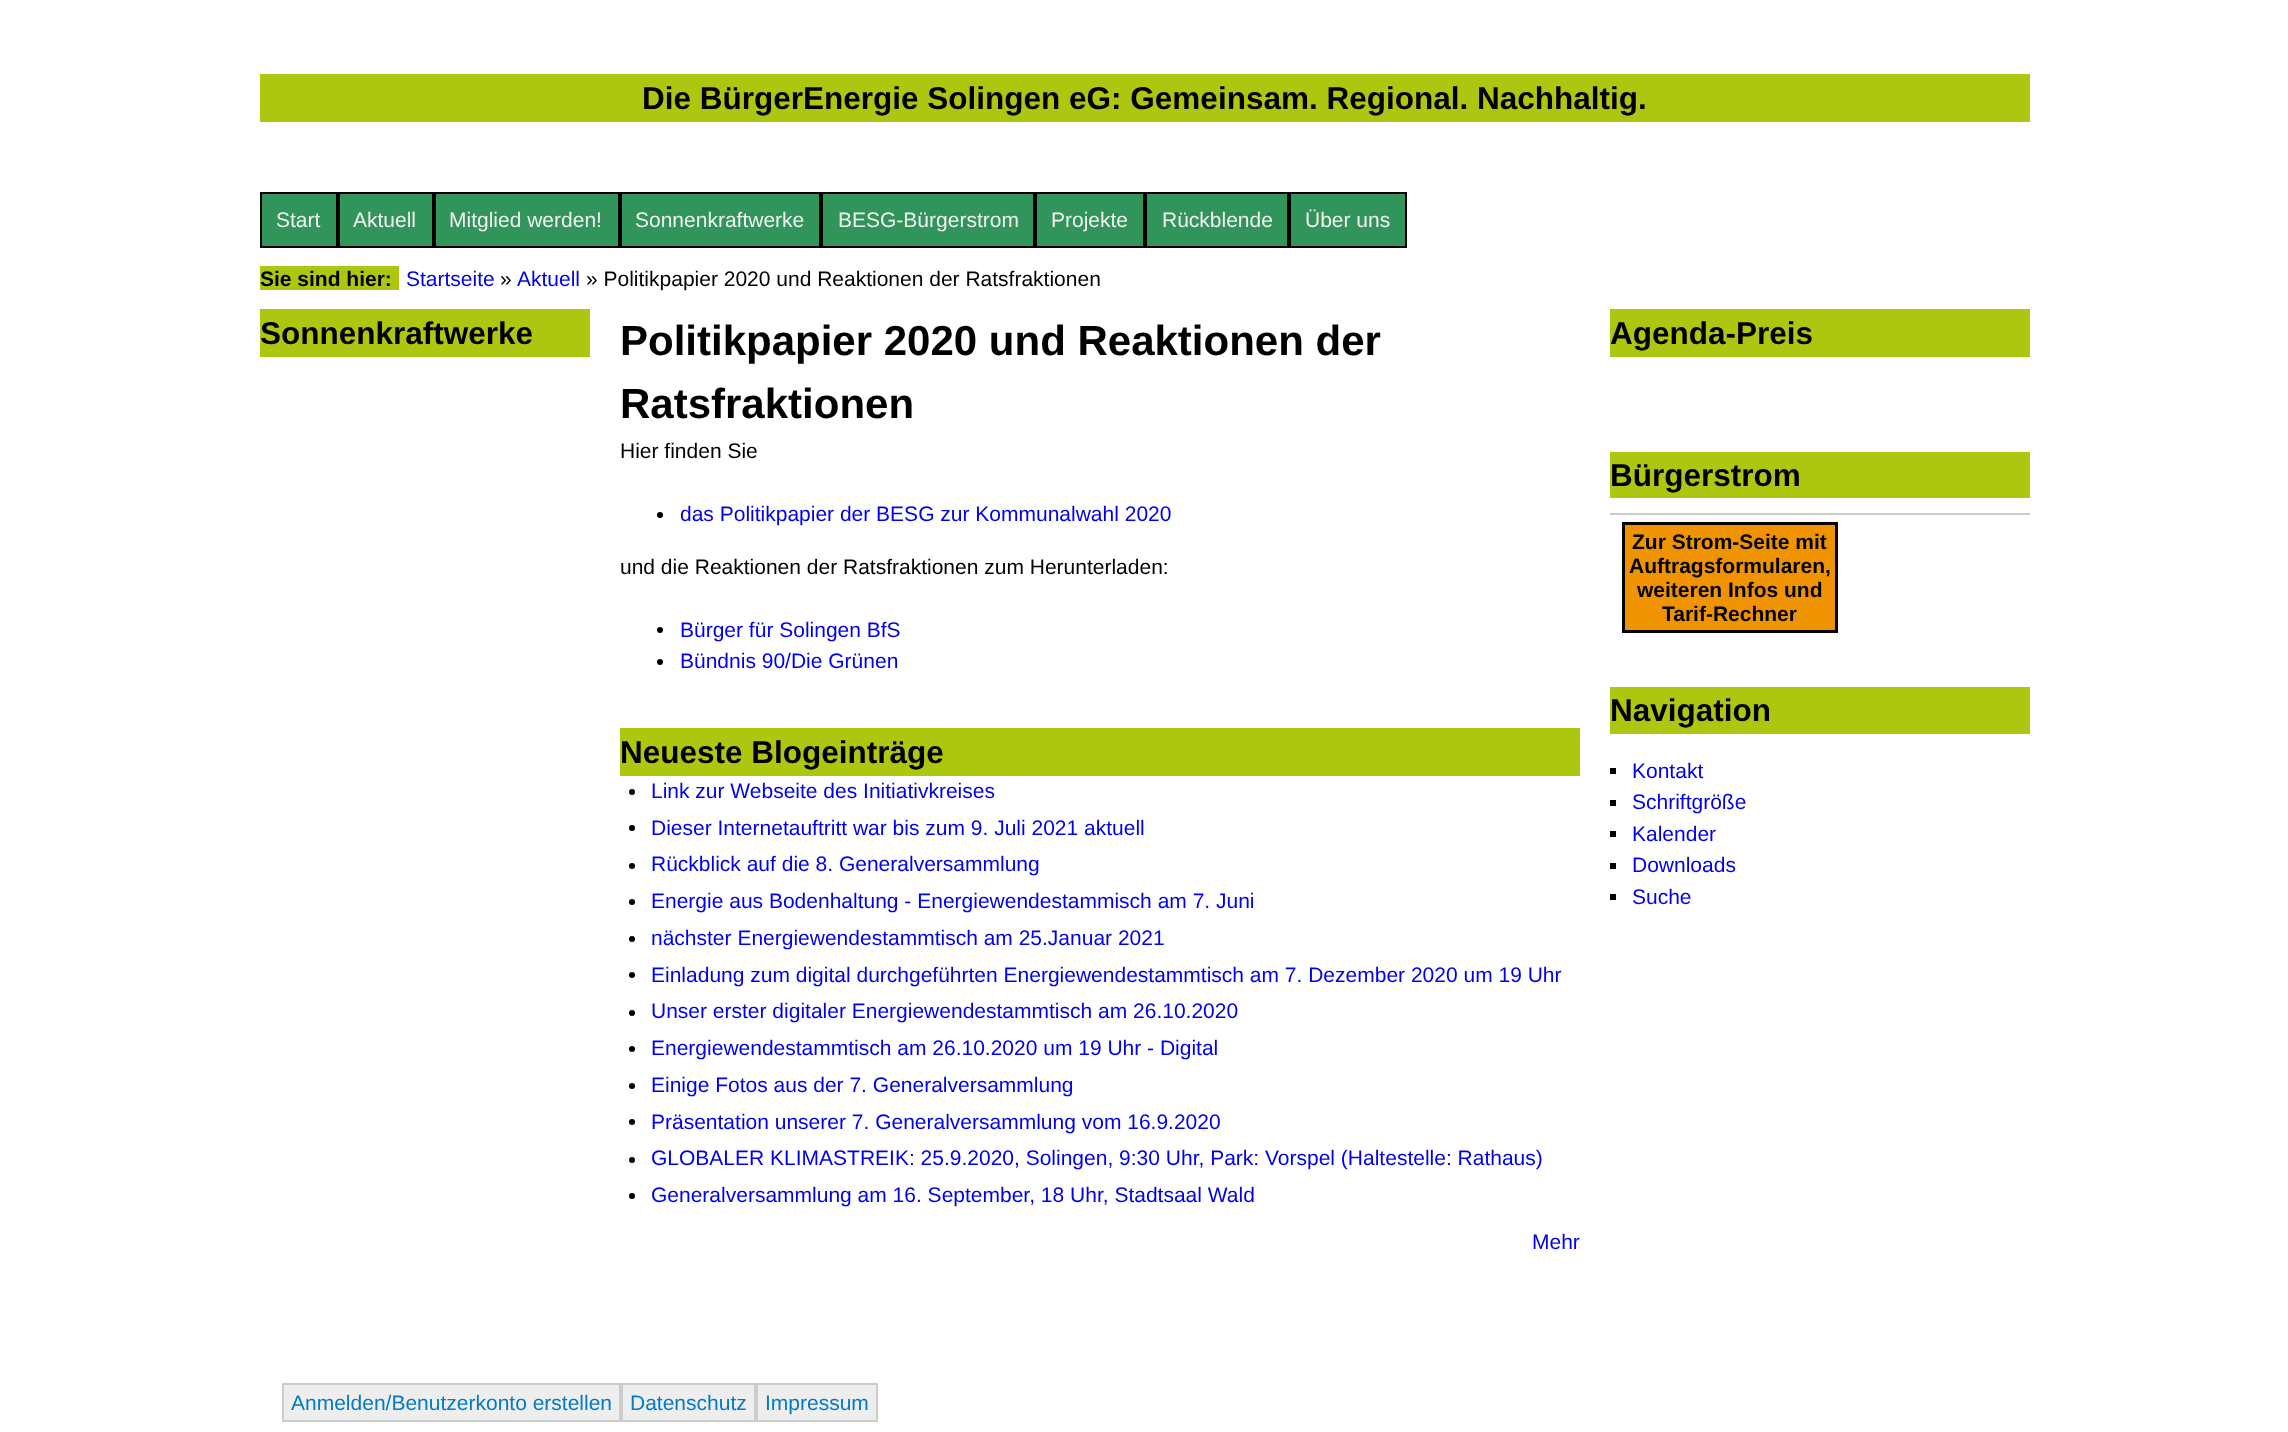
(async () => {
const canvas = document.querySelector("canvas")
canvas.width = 2288
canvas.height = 1432
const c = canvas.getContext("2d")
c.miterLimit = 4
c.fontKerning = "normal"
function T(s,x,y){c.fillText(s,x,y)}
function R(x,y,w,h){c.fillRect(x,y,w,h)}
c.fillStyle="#fff"
R(0,0,2288,1432)
c.fillStyle="#adc610"
R(260,74,1770,48)
c.font="bold 31.5px Liberation Sans"
c.fillStyle="#000"
T("Die BürgerEnergie Solingen eG: Gemeinsam. Regional. Nachhaltig.",642,109)
c.fillStyle="#31945a"
c.beginPath()
c.rect(261,193,76,54)
c.fill()
c.strokeStyle="#000"
c.lineWidth=2
c.stroke()
c.font="21px Liberation Sans"
c.fillStyle="#f1f1f1"
T("Start",276,227)
c.fillStyle="#31945a"
c.beginPath()
c.rect(339,193,94,54)
c.fill()
c.stroke()
c.fillStyle="#f1f1f1"
T("Aktuell",353,227)
c.fillStyle="#31945a"
c.beginPath()
c.rect(435,193,184,54)
c.fill()
c.stroke()
c.fillStyle="#f1f1f1"
T("Mitglied werden!",449,227)
c.fillStyle="#31945a"
c.beginPath()
c.rect(621,193,199,54)
c.fill()
c.stroke()
c.fillStyle="#f1f1f1"
T("Sonnenkraftwerke",635,227)
c.fillStyle="#31945a"
c.beginPath()
c.rect(822,193,212,54)
c.fill()
c.stroke()
c.fillStyle="#f1f1f1"
T("BESG-Bürgerstrom",838,227)
c.fillStyle="#31945a"
c.beginPath()
c.rect(1036,193,108,54)
c.fill()
c.stroke()
c.fillStyle="#f1f1f1"
T("Projekte",1051,227)
c.fillStyle="#31945a"
c.beginPath()
c.rect(1146,193,142,54)
c.fill()
c.stroke()
c.fillStyle="#f1f1f1"
T("Rückblende",1162,227)
c.fillStyle="#31945a"
c.beginPath()
c.rect(1290,193,116,54)
c.fill()
c.stroke()
c.fillStyle="#f1f1f1"
T("Über uns",1305,227)
c.fillStyle="#adc610"
R(260,266,139,24)
c.font="bold 21px Liberation Sans"
c.fillStyle="#000"
T("Sie sind hier:",260,286)
c.font="21px Liberation Sans"
c.fillStyle="#00e"
T("Startseite",406,286)
c.fillStyle="#000"
T("»",500,286)
c.fillStyle="#00e"
T("Aktuell",517,286)
c.fillStyle="#000"
T("» Politikpapier 2020 und Reaktionen der Ratsfraktionen",586,286)
c.fillStyle="#adc610"
R(260,309,330,48)
c.font="bold 31.5px Liberation Sans"
c.fillStyle="#000"
T("Sonnenkraftwerke",260,344)
c.font="bold 42px Liberation Sans"
T("Politikpapier 2020 und Reaktionen der",620,355)
T("Ratsfraktionen",620,418)
c.font="21px Liberation Sans"
T("Hier finden Sie",620,458)
c.beginPath()
c.arc(660,515,3,0,7)
c.fill()
c.fillStyle="#00e"
T("das Politikpapier der BESG zur Kommunalwahl 2020",680,521)
c.fillStyle="#000"
T("und die Reaktionen der Ratsfraktionen zum Herunterladen:",620,574)
c.beginPath()
c.arc(660,630,3,0,7)
c.fill()
c.fillStyle="#00e"
T("Bürger für Solingen BfS",680,637)
c.fillStyle="#000"
c.beginPath()
c.arc(660,662,3,0,7)
c.fill()
c.fillStyle="#00e"
T("Bündnis 90/Die Grünen",680,668)
c.fillStyle="#adc610"
R(620,728,960,48)
c.font="bold 31.5px Liberation Sans"
c.fillStyle="#000"
T("Neueste Blogeinträge",620,763)
c.beginPath()
c.arc(632,792,3,0,7)
c.fill()
c.font="21px Liberation Sans"
c.fillStyle="#00e"
T("Link zur Webseite des Initiativkreises",651,798)
c.fillStyle="#000"
c.beginPath()
c.arc(632,828,3,0,7)
c.fill()
c.fillStyle="#00e"
T("Dieser Internetauftritt war bis zum 9. Juli 2021 aktuell",651,835)
c.fillStyle="#000"
c.beginPath()
c.arc(632,866,3,0,7)
c.fill()
c.fillStyle="#00e"
T("Rückblick auf die 8. Generalversammlung",651,871)
c.fillStyle="#000"
c.beginPath()
c.arc(632,902,3,0,7)
c.fill()
c.fillStyle="#00e"
T("Energie aus Bodenhaltung - Energiewendestammisch am 7. Juni",651,908)
c.fillStyle="#000"
c.beginPath()
c.arc(632,939,3,0,7)
c.fill()
c.fillStyle="#00e"
T("nächster Energiewendestammtisch am 25.Januar 2021",651,945)
c.fillStyle="#000"
c.beginPath()
c.arc(632,975,3,0,7)
c.fill()
c.fillStyle="#00e"
T("Einladung zum digital durchgeführten Energiewendestammtisch am 7. Dezember 2020 um 19 Uhr",651,982)
c.fillStyle="#000"
c.beginPath()
c.arc(632,1013,3,0,7)
c.fill()
c.fillStyle="#00e"
T("Unser erster digitaler Energiewendestammtisch am 26.10.2020",651,1018)
c.fillStyle="#000"
c.beginPath()
c.arc(632,1049,3,0,7)
c.fill()
c.fillStyle="#00e"
T("Energiewendestammtisch am 26.10.2020 um 19 Uhr - Digital",651,1055)
c.fillStyle="#000"
c.beginPath()
c.arc(632,1086,3,0,7)
c.fill()
c.fillStyle="#00e"
T("Einige Fotos aus der 7. Generalversammlung",651,1092)
c.fillStyle="#000"
c.beginPath()
c.arc(632,1122,3,0,7)
c.fill()
c.fillStyle="#00e"
T("Präsentation unserer 7. Generalversammlung vom 16.9.2020",651,1129)
c.fillStyle="#000"
c.beginPath()
c.arc(632,1160,3,0,7)
c.fill()
c.fillStyle="#00e"
T("GLOBALER KLIMASTREIK: 25.9.2020, Solingen, 9:30 Uhr, Park: Vorspel (Haltestelle: Rathaus)",651,1165)
c.fillStyle="#000"
c.beginPath()
c.arc(632,1196,3,0,7)
c.fill()
c.fillStyle="#00e"
T("Generalversammlung am 16. September, 18 Uhr, Stadtsaal Wald",651,1202)
T("Mehr",1532,1249)
c.fillStyle="#adc610"
R(1610,309,420,48)
c.font="bold 31.5px Liberation Sans"
c.fillStyle="#000"
T("Agenda-Preis",1610,344)
c.fillStyle="#adc610"
R(1610,452,420,46)
c.fillStyle="#000"
T("Bürgerstrom",1610,486)
c.fillStyle="#ccc"
R(1610,513,420,2)
c.fillStyle="#ef9400"
c.beginPath()
c.rect(1623.5,523.5,213,108)
c.fill()
c.lineWidth=3
c.stroke()
c.font="bold 21px Liberation Sans"
c.fillStyle="#000"
T("Zur Strom-Seite mit",1632,549)
T("Auftragsformularen,",1629,573)
T("weiteren Infos und",1637,597)
T("Tarif-Rechner",1662,621)
c.fillStyle="#adc610"
R(1610,687,420,47)
c.font="bold 31.5px Liberation Sans"
c.fillStyle="#000"
T("Navigation",1610,721)
R(1610,768,6,6)
c.font="21px Liberation Sans"
c.fillStyle="#00e"
T("Kontakt",1632,778)
c.fillStyle="#000"
R(1610,800,6,6)
c.fillStyle="#00e"
T("Schriftgröße",1632,809)
c.fillStyle="#000"
R(1610,831,6,6)
c.fillStyle="#00e"
T("Kalender",1632,841)
c.fillStyle="#000"
R(1610,863,6,6)
c.fillStyle="#00e"
T("Downloads",1632,872)
c.fillStyle="#000"
R(1610,894,6,6)
c.fillStyle="#00e"
T("Suche",1632,904)
c.fillStyle="#eee"
c.beginPath()
c.rect(283,1384,337,37)
c.fill()
c.strokeStyle="#ccc"
c.lineWidth=2
c.stroke()
c.fillStyle="#027ac6"
T("Anmelden/Benutzerkonto erstellen",291,1410)
c.fillStyle="#eee"
c.beginPath()
c.rect(622,1384,133,37)
c.fill()
c.stroke()
c.fillStyle="#027ac6"
T("Datenschutz",630,1410)
c.fillStyle="#eee"
c.beginPath()
c.rect(757,1384,120,37)
c.fill()
c.stroke()
c.fillStyle="#027ac6"
T("Impressum",765,1410)
})()
